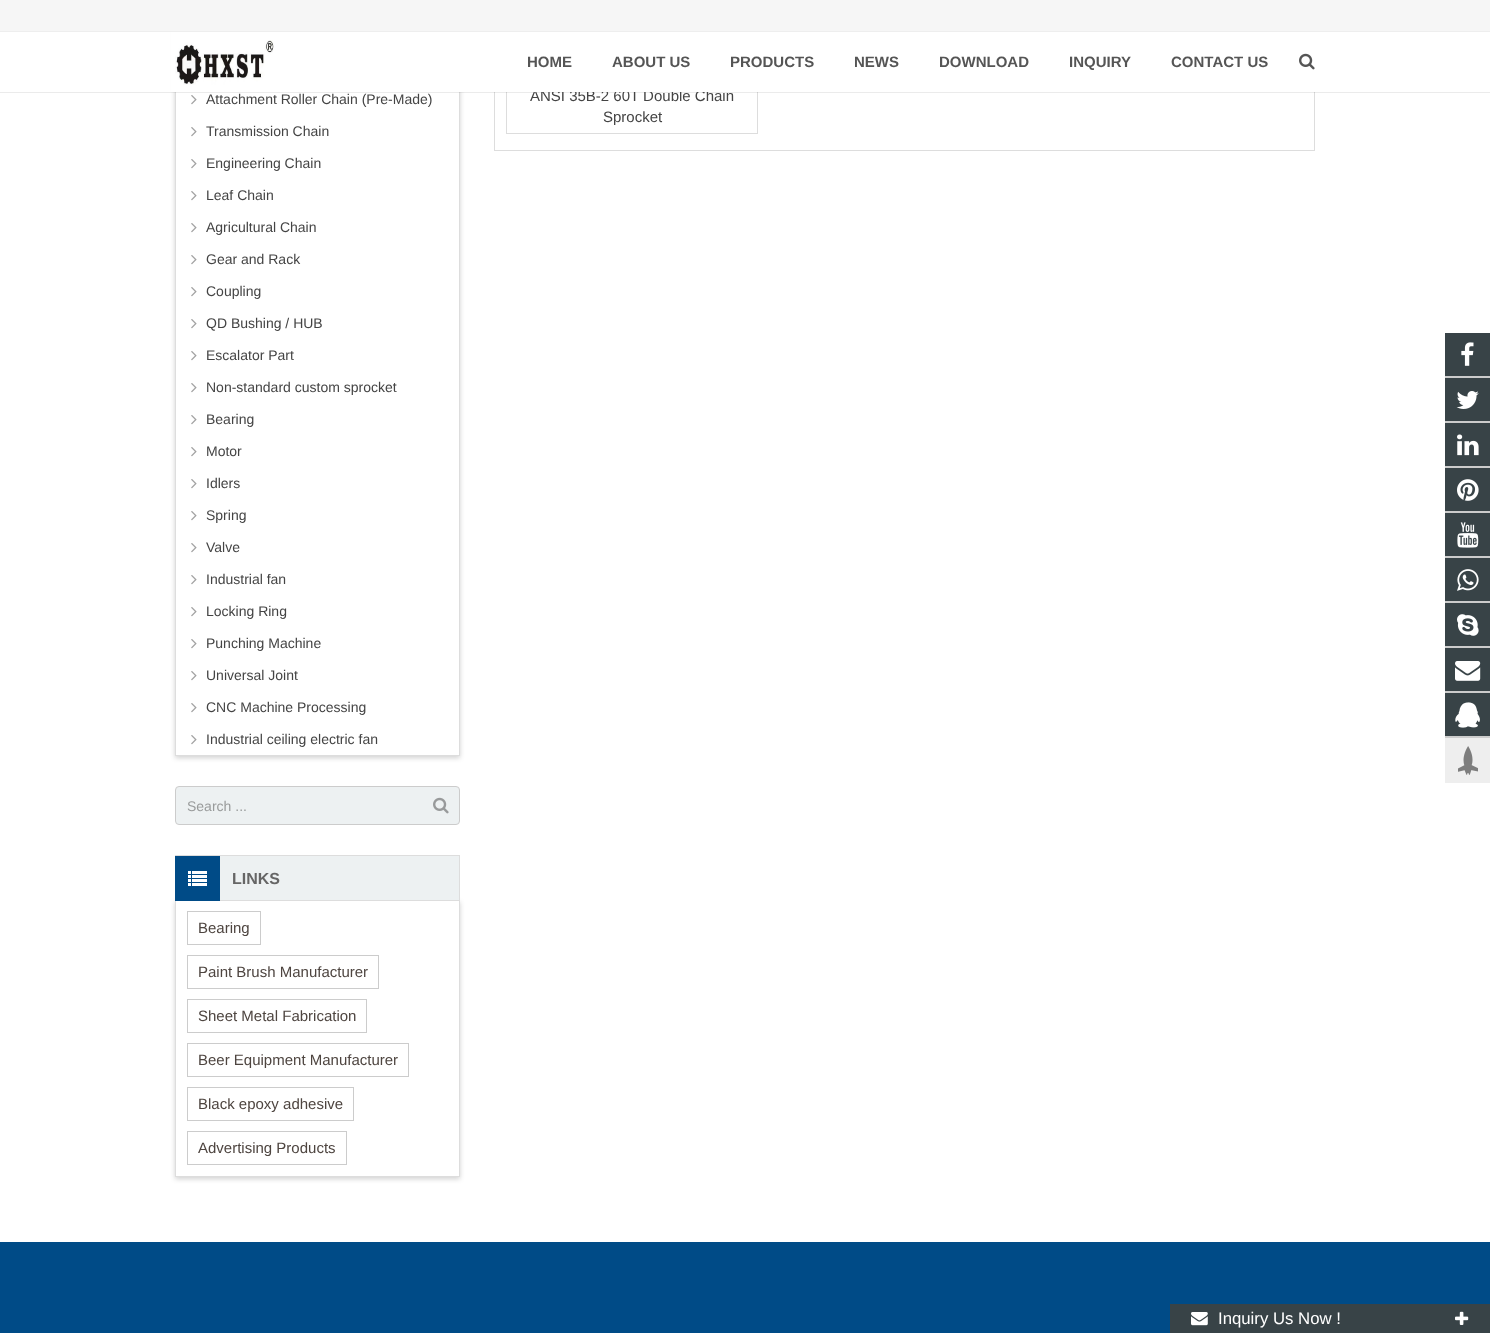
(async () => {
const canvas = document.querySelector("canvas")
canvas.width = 1490
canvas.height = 1333
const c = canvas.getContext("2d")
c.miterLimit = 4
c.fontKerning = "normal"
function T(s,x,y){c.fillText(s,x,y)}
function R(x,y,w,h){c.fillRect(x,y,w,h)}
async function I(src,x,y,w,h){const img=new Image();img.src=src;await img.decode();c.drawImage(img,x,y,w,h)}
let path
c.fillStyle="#fff"
R(0,0,1490,1333)
c.save()
path = new Path2D("M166 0h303v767h-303zm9-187h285v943h-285z")
c.clip(path,"evenodd")
c.fillStyle="#0000002e"
c.filter="blur(2.5px)"
c.beginPath()
c.rect(175,-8,285,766)
c.fill()
c.filter="none"
c.restore()
c.strokeStyle="#ddd"
c.strokeRect(175.5,-.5,284,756)
c.strokeRect(494.5,-.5,820,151)
c.strokeRect(506.5,-.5,251,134)
c.fillStyle="#f6f6f6"
R(0,0,1490,31)
c.fillStyle="#eee"
R(0,31,1490,1)
c.fillStyle="#00000014"
R(0,92,1490,1)
c.font="15px Liberation Sans"
c.fillStyle="#444"
T("ANSI 35B-2 60T Double Chain",530,101)
c.fillStyle="#fff"
R(171,32,1144,60)
await I("1.png",175,40,99,45)
c.font="bold 15px Liberation Sans"
c.fillStyle="#555"
T("HOME",527,67)
T("ABOUT US",612,67)
T("PRODUCTS",730,67)
T("NEWS",854,67)
T("DOWNLOAD",939,67)
T("INQUIRY",1069,67)
T("CONTACT US",1171,67)
await I("2.png",1299,53,16,17)
await I("3.png",191,95,6,10)
c.font="14px Liberation Sans"
c.fillStyle="#444"
T("Attachment Roller Chain (Pre-Made)",206,104)
await I("3.png",191,127,6,10)
T("Transmission Chain",206,136)
await I("3.png",191,159,6,10)
T("Engineering Chain",206,168)
await I("3.png",191,191,6,10)
T("Leaf Chain",206,200)
await I("3.png",191,223,6,10)
T("Agricultural Chain",206,232)
await I("3.png",191,255,6,10)
T("Gear and Rack",206,264)
await I("3.png",191,287,6,10)
T("Coupling",206,296)
await I("3.png",191,319,6,10)
T("QD Bushing / HUB",206,328)
await I("3.png",191,351,6,10)
T("Escalator Part",206,360)
await I("3.png",191,383,6,10)
T("Non-standard custom sprocket",206,392)
await I("3.png",191,415,6,10)
T("Bearing",206,424)
await I("3.png",191,447,6,10)
T("Motor",206,456)
await I("3.png",191,479,6,10)
T("Idlers",206,488)
await I("3.png",191,511,6,10)
T("Spring",206,520)
await I("3.png",191,543,6,10)
T("Valve",206,552)
await I("3.png",191,575,6,10)
T("Industrial fan",206,584)
await I("3.png",191,607,6,10)
T("Locking Ring",206,616)
await I("3.png",191,639,6,10)
T("Punching Machine",206,648)
await I("3.png",191,671,6,10)
T("Universal Joint",206,680)
await I("3.png",191,703,6,10)
T("CNC Machine Processing",206,712)
await I("3.png",191,735,6,10)
T("Industrial ceiling electric fan",206,744)
c.fillStyle="#edf1f2"
c.beginPath()
c.roundRect(175.5,786.5,284,38,3.5)
c.fill()
c.strokeStyle="#ccc"
c.stroke()
c.fillStyle="#999b9b"
T("Search ...",187,811)
await I("4.png",433,797,16,17)
c.save()
path = new Path2D("M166 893h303v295h-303zm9 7h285v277h-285z")
c.clip(path,"evenodd")
c.fillStyle="#0000002e"
c.filter="blur(2.5px)"
c.beginPath()
c.rect(175,902,285,277)
c.fill()
c.filter="none"
c.restore()
c.fillStyle="#edf1f2"
R(220,856,239,44)
c.fillStyle="#ddd"
R(175,855,285,1)
R(459,855,1,45)
c.strokeStyle="#ddd"
c.strokeRect(175.5,900.5,284,276)
c.fillStyle="#004b87"
R(175,856,45,45)
await I("5.png",188,871,19,15)
c.font="bold 16px Liberation Sans"
c.fillStyle="#666"
T("LINKS",232,884)
c.strokeStyle="#ccc"
c.strokeRect(187.5,911.5,73,33)
c.font="15px Liberation Sans"
c.fillStyle="#4e4540"
T("Bearing",198,933)
c.strokeRect(187.5,955.5,191,33)
T("Paint Brush Manufacturer",198,977)
c.strokeRect(187.5,999.5,179,33)
T("Sheet Metal Fabrication",198,1021)
c.strokeRect(187.5,1043.5,221,33)
T("Beer Equipment Manufacturer",198,1065)
c.strokeRect(187.5,1087.5,166,33)
T("Black epoxy adhesive",198,1109)
c.strokeRect(187.5,1131.5,159,33)
T("Advertising Products",198,1153)
c.fillStyle="#444"
T("Sprocket",603,122)
c.fillStyle="#384347"
R(1445,333,45,403)
c.fillStyle="#ccc"
R(1445,376,45,2)
await I("6.png",1461,342,13,24)
R(1445,421,45,2)
await I("7.png",1456,391,23,18)
R(1445,466,45,2)
await I("8.png",1457,434,22,22)
R(1445,511,45,2)
await I("9.png",1457,479,22,22)
R(1445,556,45,2)
await I("10.png",1457,522,22,26)
R(1445,601,45,2)
await I("11.png",1457,569,22,22)
R(1445,646,45,2)
await I("12.png",1457,614,22,22)
R(1445,691,45,2)
await I("13.png",1455,661,26,20)
R(1445,736,45,2)
await I("14.png",1455,702,25,26)
await I("15.png",1445,738,45,45)
c.fillStyle="#004b87"
R(0,1242,1490,91)
c.fillStyle="#384347"
R(1170,1304,320,29)
await I("16.png",1191,1312,17,14)
c.font="16.75px Liberation Sans"
c.fillStyle="#fff"
T("Inquiry Us Now !",1218,1324)
await I("17.png",1455,1311,14,14)
})()
